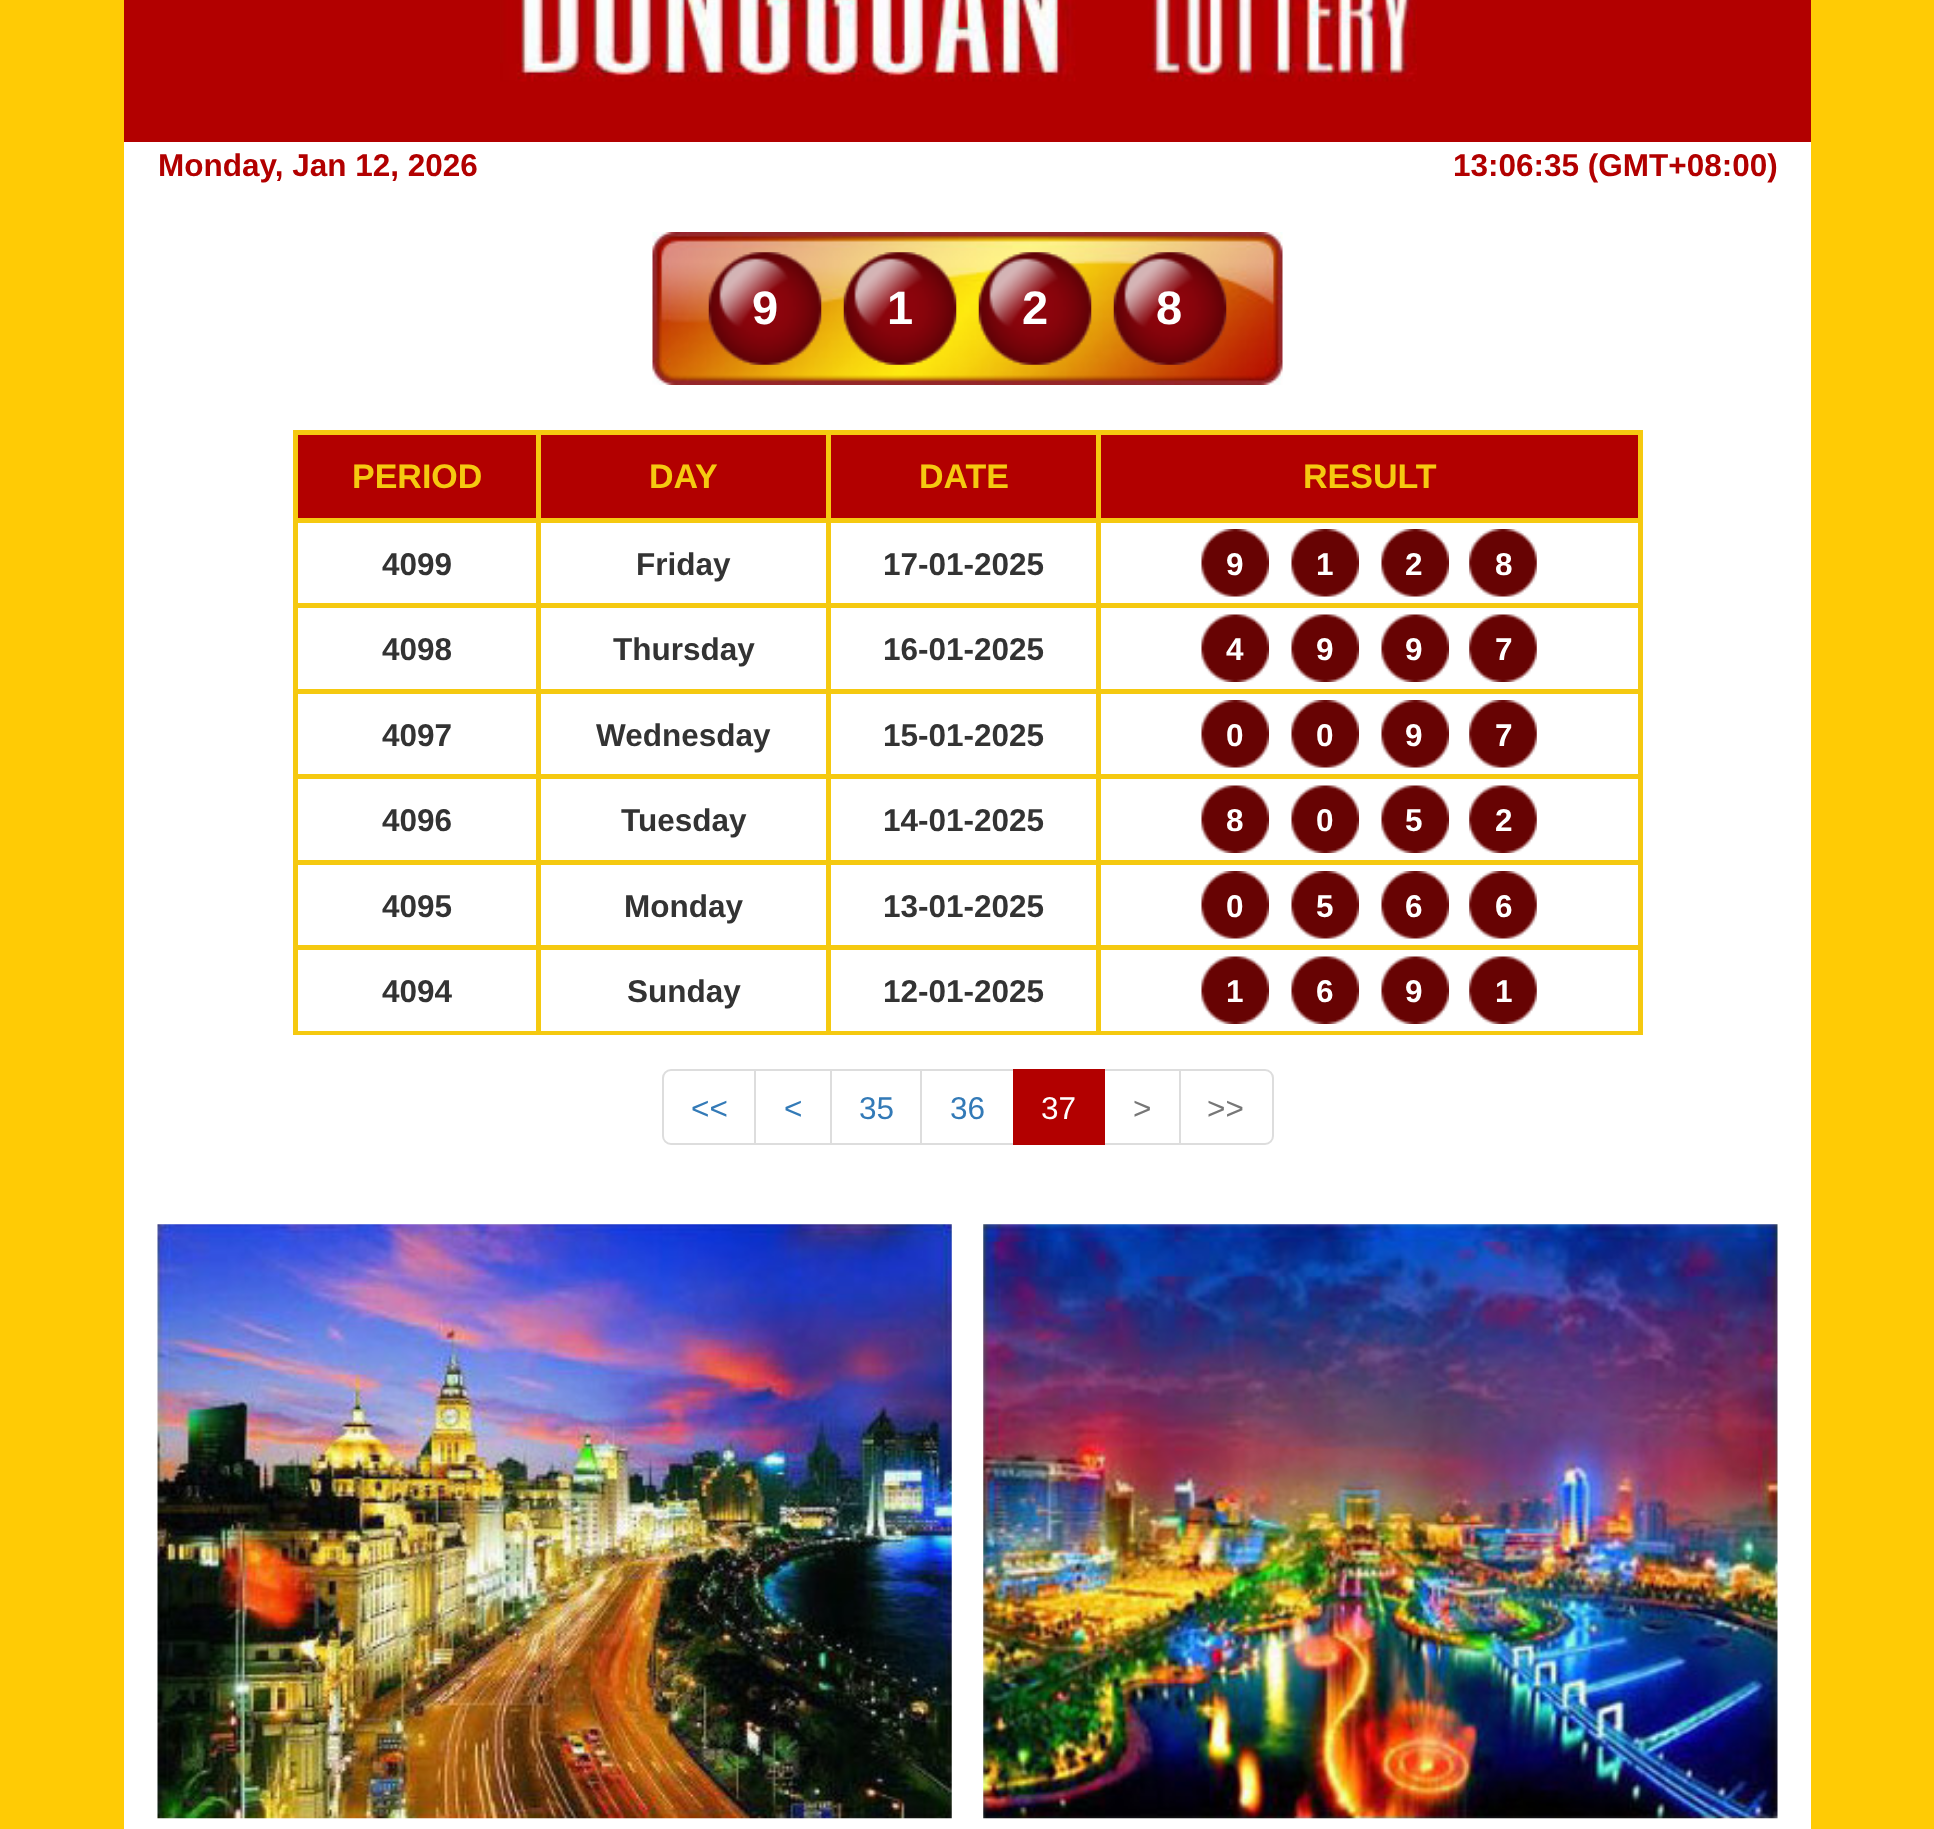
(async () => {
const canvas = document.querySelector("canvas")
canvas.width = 1934
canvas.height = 1829
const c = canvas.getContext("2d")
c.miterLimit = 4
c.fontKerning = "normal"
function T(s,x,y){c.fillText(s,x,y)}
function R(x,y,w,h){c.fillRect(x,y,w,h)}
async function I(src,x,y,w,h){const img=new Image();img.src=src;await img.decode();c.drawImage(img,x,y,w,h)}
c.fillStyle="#ffcb05"
R(0,0,1934,1829)
c.fillStyle="#fff"
R(124,142,1687,1687)
c.fillStyle="#b20000"
R(124,0,1687,142)
await I("1.png",500,0,917,82)
c.font="bold 31.5px Liberation Sans"
T("Monday, Jan 12, 2026",158,176)
T("13:06:35 (GMT+08:00)",1453,176)
await I("2.png",652,232,631,153)
await I("3.png",708,252,114,113)
c.font="bold 47px Liberation Sans"
c.fillStyle="#fff"
T("9",752,324)
await I("4.png",843,252,114,113)
T("1",887,324)
await I("5.png",978,252,114,113)
T("2",1022,324)
await I("6.png",1113,252,114,113)
T("8",1156,324)
c.fillStyle="#f5c910"
R(293,430,1350,5)
R(1638,430,5,605)
R(293,1031,1350,4)
R(293,430,5,605)
c.fillStyle="#b20000"
R(298,435,238,83)
c.font="bold 34px Liberation Sans"
c.fillStyle="#f5c910"
T("PERIOD",352,488)
c.fillStyle="#b20000"
R(541,435,285,83)
c.fillStyle="#f5c910"
R(1096,518,547,5)
R(1096,603,547,5)
R(1096,689,547,5)
R(1096,774,547,5)
R(1096,860,547,5)
R(1096,945,547,5)
R(1096,945,5,90)
R(826,945,274,5)
R(1096,860,5,90)
R(826,860,274,5)
R(1096,774,5,90)
R(826,774,274,5)
R(1096,689,5,90)
R(826,689,274,5)
R(1096,603,5,90)
R(826,603,274,5)
R(1096,518,5,90)
R(826,518,274,5)
R(826,945,5,90)
R(536,945,294,5)
R(826,860,5,90)
R(536,860,294,5)
R(826,774,5,90)
R(536,774,294,5)
R(826,689,5,90)
R(536,689,294,5)
R(826,603,5,90)
R(536,603,294,5)
R(826,518,5,90)
R(536,518,294,5)
R(536,945,5,90)
R(293,945,247,5)
R(536,860,5,90)
R(293,860,247,5)
R(536,774,5,90)
R(293,774,247,5)
R(536,689,5,90)
R(293,689,247,5)
R(536,603,5,90)
R(293,603,247,5)
R(536,518,5,90)
R(293,518,247,5)
R(536,430,5,92)
T("DAY",649,488)
c.fillStyle="#b20000"
R(831,435,265,83)
c.fillStyle="#f5c910"
R(826,430,5,92)
T("DATE",919,488)
c.fillStyle="#b20000"
R(1101,435,537,83)
c.fillStyle="#f5c910"
R(1096,430,5,92)
T("RESULT",1303,488)
c.font="bold 31.5px Liberation Sans"
c.fillStyle="#333"
T("4099",382,575)
T("Friday",636,575)
T("17-01-2025",883,575)
await I("7.png",1201,529,68,68)
c.fillStyle="#fff"
T("9",1226,575)
await I("7.png",1291,529,68,68)
T("1",1316,575)
await I("8.png",1381,529,68,68)
T("2",1405,575)
await I("9.png",1469,529,68,68)
T("8",1495,575)
c.fillStyle="#333"
T("4098",382,660)
T("Thursday",613,660)
T("16-01-2025",883,660)
await I("10.png",1201,614,68,68)
c.fillStyle="#fff"
T("4",1226,660)
await I("10.png",1291,614,68,68)
T("9",1316,660)
await I("11.png",1381,614,68,68)
T("9",1405,660)
await I("12.png",1469,614,68,68)
T("7",1495,660)
c.fillStyle="#333"
T("4097",382,746)
T("Wednesday",596,746)
T("15-01-2025",883,746)
await I("7.png",1201,700,68,68)
c.fillStyle="#fff"
T("0",1226,746)
await I("7.png",1291,700,68,68)
T("0",1316,746)
await I("8.png",1381,700,68,68)
T("9",1405,746)
await I("9.png",1469,700,68,68)
T("7",1495,746)
c.fillStyle="#333"
T("4096",382,831)
T("Tuesday",621,831)
T("14-01-2025",883,831)
await I("13.png",1201,785,68,68)
c.fillStyle="#fff"
T("8",1226,831)
await I("13.png",1291,785,68,68)
T("0",1316,831)
await I("14.png",1381,785,68,68)
T("5",1405,831)
await I("15.png",1469,785,68,68)
T("2",1495,831)
c.fillStyle="#333"
T("4095",382,917)
T("Monday",624,917)
T("13-01-2025",883,917)
await I("7.png",1201,871,68,68)
c.fillStyle="#fff"
T("0",1226,917)
await I("7.png",1291,871,68,68)
T("5",1316,917)
await I("8.png",1381,871,68,68)
T("6",1405,917)
await I("9.png",1469,871,68,68)
T("6",1495,917)
c.fillStyle="#333"
T("4094",382,1002)
T("Sunday",627,1002)
T("12-01-2025",883,1002)
await I("16.png",1201,956,68,68)
c.fillStyle="#fff"
T("1",1226,1002)
await I("16.png",1291,956,68,68)
T("6",1316,1002)
await I("17.png",1381,956,68,68)
T("9",1405,1002)
await I("18.png",1469,956,68,68)
T("1",1495,1002)
c.beginPath()
c.roundRect(663,1070,92,74,[8,0,0,8])
c.strokeStyle="#ddd"
c.lineWidth=2
c.stroke()
c.font="31.5px Liberation Sans"
c.fillStyle="#337ab7"
T("<<",691,1119)
c.strokeRect(755,1070,77,74)
T("<",784,1119)
c.fillStyle="#fff"
R(832,1071,1,72)
c.strokeRect(831,1070,91,74)
c.fillStyle="#337ab7"
T("35",859,1119)
c.fillStyle="#fff"
R(922,1071,1,72)
c.strokeRect(921,1070,93,74)
c.fillStyle="#337ab7"
T("36",950,1119)
c.strokeRect(1104,1070,76,74)
c.fillStyle="#b20000"
R(1013,1069,92,76)
c.fillStyle="#fff"
T("37",1041,1119)
c.fillStyle="#777"
T(">",1133,1119)
c.fillStyle="#fff"
c.beginPath()
c.roundRect(1180,1070,93,74,[0,8,8,0])
c.fill()
c.stroke()
c.fillStyle="#777"
T(">>",1207,1119)
await I("19.png",157,1224,795,595)
await I("20.png",983,1224,795,595)
})()
